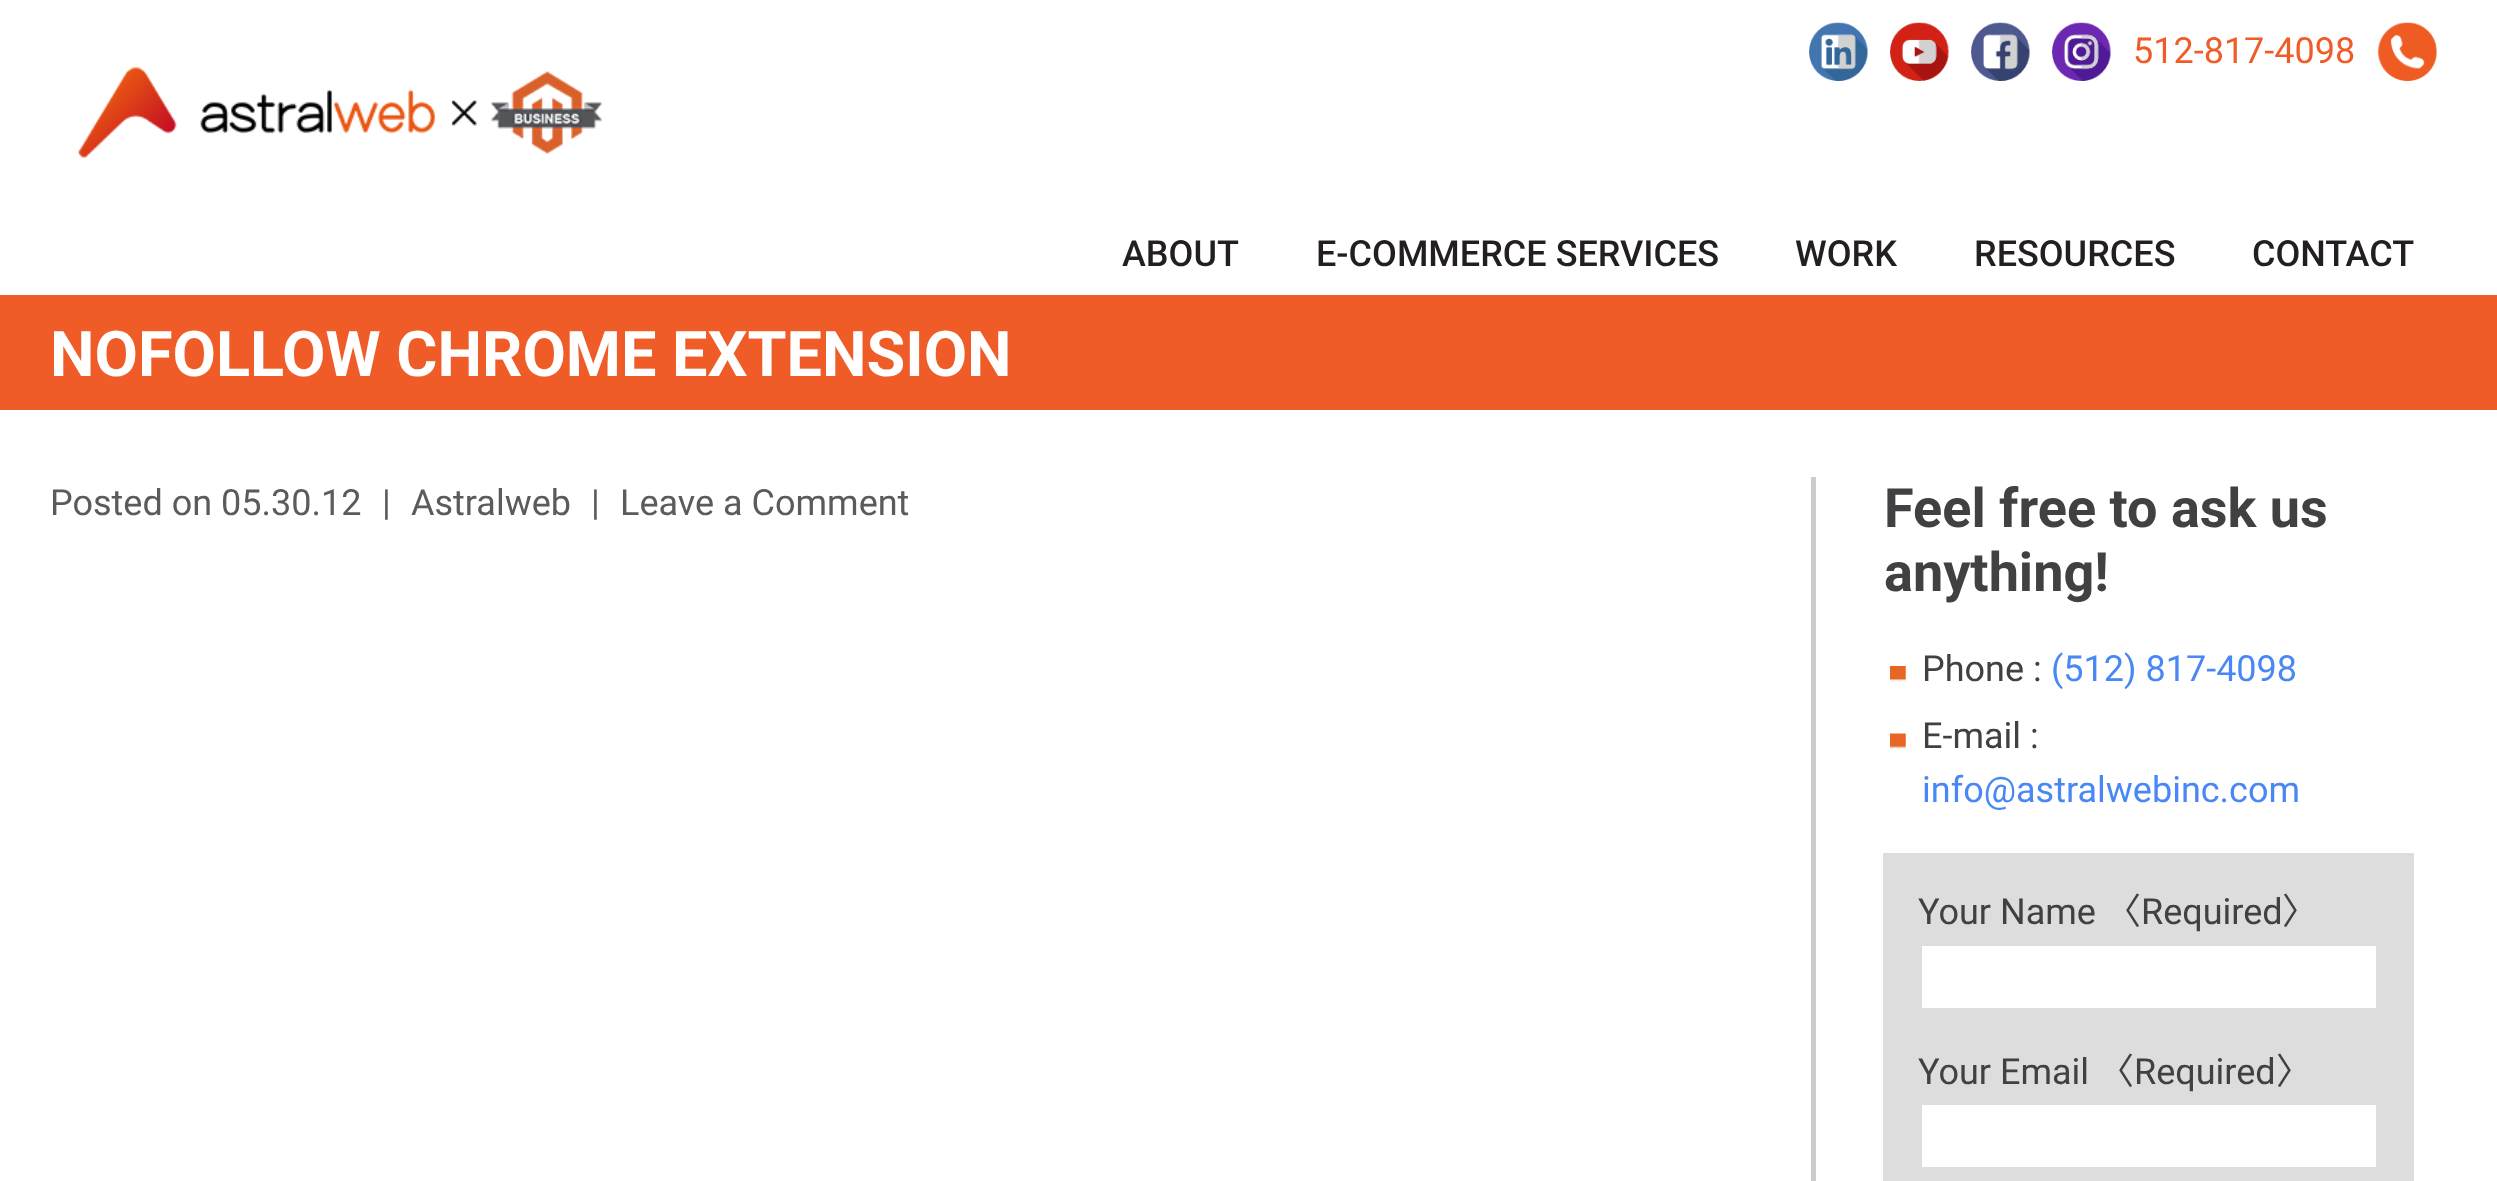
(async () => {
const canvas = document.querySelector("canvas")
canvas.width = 2497
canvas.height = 1181
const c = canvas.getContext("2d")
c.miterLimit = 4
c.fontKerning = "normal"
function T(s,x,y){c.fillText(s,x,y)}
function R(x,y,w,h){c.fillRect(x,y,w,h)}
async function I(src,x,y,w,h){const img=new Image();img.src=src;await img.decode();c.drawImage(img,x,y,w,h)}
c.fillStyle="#fff"
R(0,0,2497,1181)
await I("1.png",1809,22,59,59)
await I("2.png",1890,22,59,59)
await I("3.png",1971,22,59,59)
await I("4.png",2052,22,59,59)
c.font="36px Roboto"
c.fillStyle="#ef5c28"
T("512-817-4098",2133,63)
await I("5.png",2378,22,59,59)
await I("6.png",78,67,524,91)
R(0,295,2497,115)
c.font="500 36px Roboto"
c.fillStyle="#231f20"
T("ABOUT",1122,266)
T("E-COMMERCE SERVICES",1316,266)
T("WORK",1795,266)
T("RESOURCES",1974,266)
T("CONTACT",2252,266)
c.font="bold 63px Roboto"
c.fillStyle="#fff"
T("NOFOLLOW CHROME EXTENSION",50,376)
c.font="36px Roboto"
c.fillStyle="#5a5b5d"
T("Posted on 05.30.12",50,515)
T("|",382,515)
T("Astralweb",411,515)
T("|",591,515)
T("Leave a Comment",620,515)
c.fillStyle="#ccc"
R(1811,477,5,704)
c.font="bold 54px Roboto"
c.fillStyle="#414042"
T("Feel free to ask us",1884,527)
T("anything!",1884,591)
await I("7.png",1890,666,16,16)
c.font="36px Roboto"
T("Phone :",1922,681)
c.fillStyle="#4987f4"
T("(512) 817-4098",2051,681)
await I("8.png",1890,733,16,16)
c.fillStyle="#414042"
T("E-mail :",1922,748)
c.fillStyle="#4987f4"
T("info@astralwebinc.com",1922,802)
c.fillStyle="#ddd"
R(1883,853,531,328)
c.fillStyle="#414042"
T("Your Name",1918,924)
c.font="36px Noto Sans CJK TC"
T("〈",2105,924)
c.font="36px Roboto"
T("Required",2141,924)
c.font="36px Noto Sans CJK TC"
T("〉",2282,924)
c.fillStyle="#fff"
R(1922,946,454,62)
c.font="36px Roboto"
c.fillStyle="#414042"
T("Your Email",1918,1084)
c.font="36px Noto Sans CJK TC"
T("〈",2098,1084)
c.font="36px Roboto"
T("Required",2134,1084)
c.font="36px Noto Sans CJK TC"
T("〉",2276,1084)
c.fillStyle="#fff"
R(1922,1105,454,62)
})()
